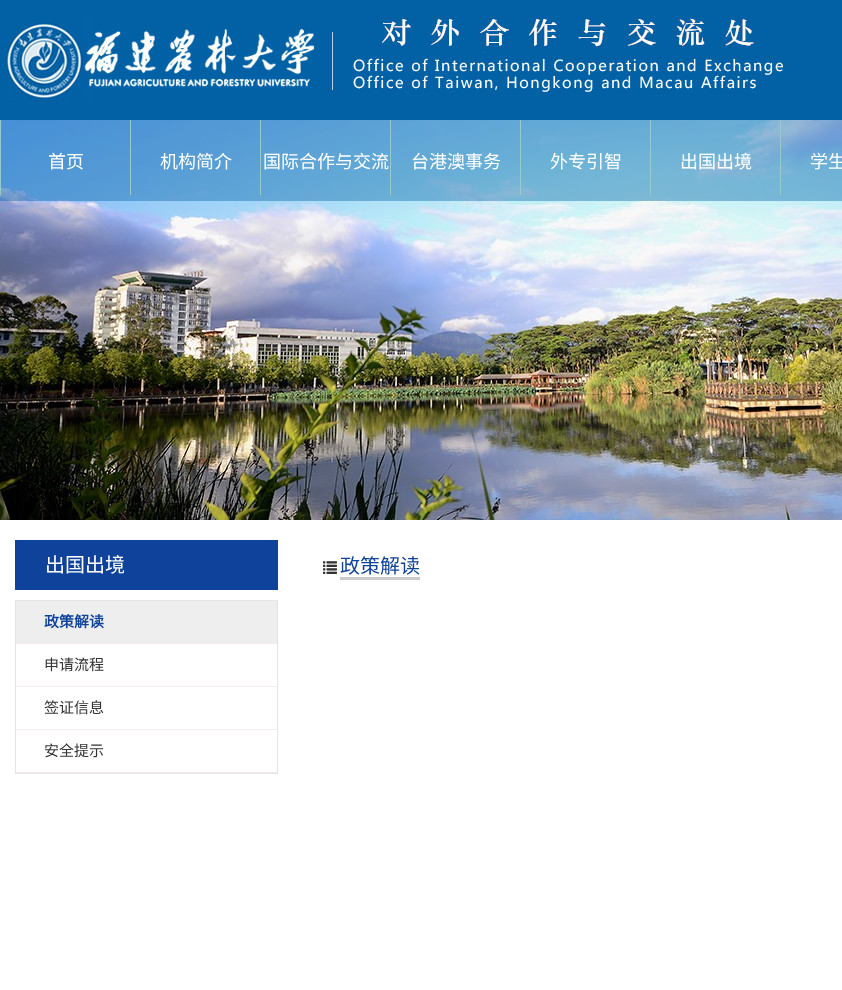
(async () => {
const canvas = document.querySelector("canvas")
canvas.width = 842
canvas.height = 990
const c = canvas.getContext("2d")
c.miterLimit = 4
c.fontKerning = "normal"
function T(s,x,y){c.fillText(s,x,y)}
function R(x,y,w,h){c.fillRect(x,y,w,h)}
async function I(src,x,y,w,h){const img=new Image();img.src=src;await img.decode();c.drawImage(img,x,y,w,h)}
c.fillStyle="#0261a5"
R(0,0,842,990)
await I("1.png",1,16,783,88)
await I("2.png",0,120,842,400)
c.fillStyle="#0261a566"
R(0,120,842,81)
c.fillStyle="#96cacc"
R(0,120,1,75)
c.font="18px Noto Sans CJK SC"
c.fillStyle="#fff"
T("首页",48,168)
c.fillStyle="#96cacc"
R(130,120,1,75)
c.fillStyle="#fff"
T("机构简介",160,168)
c.fillStyle="#96cacc"
R(260,120,1,75)
c.fillStyle="#fff"
T("国际合作与交流",263,168)
c.fillStyle="#96cacc"
R(390,120,1,75)
c.fillStyle="#fff"
T("台港澳事务",411,168)
c.fillStyle="#96cacc"
R(520,120,1,75)
c.fillStyle="#fff"
T("外专引智",550,168)
c.fillStyle="#96cacc"
R(650,120,1,75)
c.fillStyle="#fff"
T("出国出境",680,168)
c.fillStyle="#96cacc"
R(780,120,1,75)
c.fillStyle="#fff"
T("学生",810,168)
R(0,520,842,470)
c.fillStyle="#0f429b"
R(15,540,263,50)
c.font="20px Noto Sans CJK SC"
c.fillStyle="#fff"
T("出国出境",45,572)
c.strokeStyle="#e4e4e4"
c.strokeRect(15.5,600.5,262,173)
c.fillStyle="#eee"
R(16,601,261,42)
c.fillStyle="#f6eaea"
R(16,643,261,1)
c.font="bold 15px Noto Sans CJK SC"
c.fillStyle="#0f429b"
T("政策解读",44,627)
c.fillStyle="#f6eaea"
R(16,686,261,1)
c.font="15px Noto Sans CJK SC"
c.fillStyle="#333"
T("申请流程",44,670)
c.fillStyle="#f6eaea"
R(16,729,261,1)
c.fillStyle="#333"
T("签证信息",44,713)
c.fillStyle="#f6eaea"
R(16,772,261,1)
c.fillStyle="#333"
T("安全提示",44,756)
await I("3.png",323,561,14,13)
c.fillStyle="#cbcbcb"
R(340,577,80,3)
c.font="20px Noto Sans CJK SC"
c.fillStyle="#0f429b"
T("政策解读",340,573)
})()
